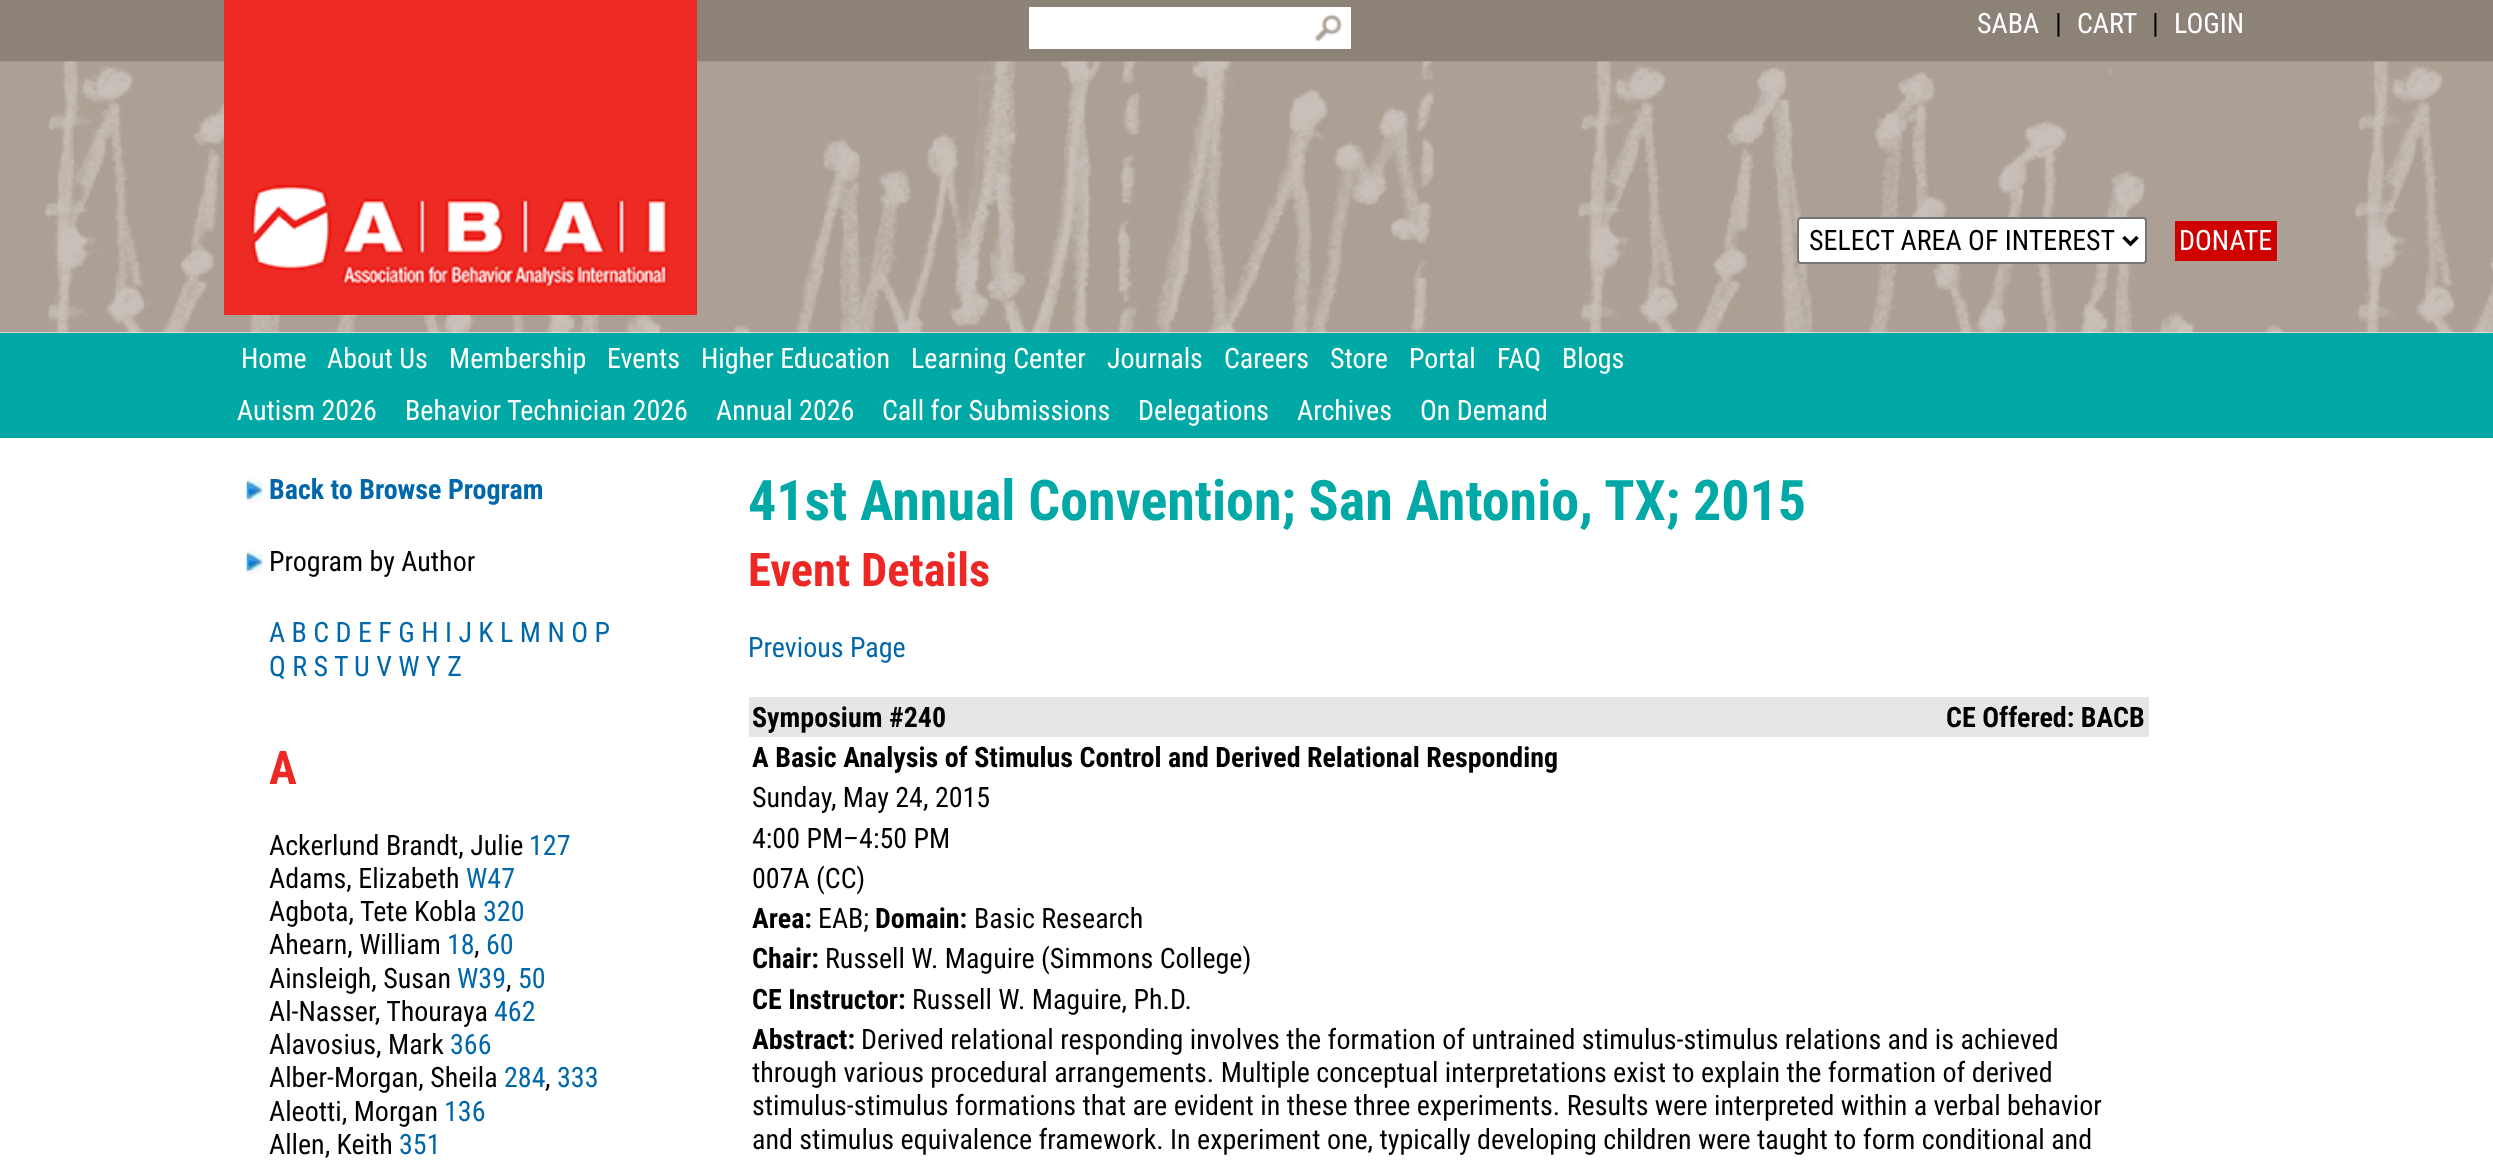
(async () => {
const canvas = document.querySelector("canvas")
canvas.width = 2493
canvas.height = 1164
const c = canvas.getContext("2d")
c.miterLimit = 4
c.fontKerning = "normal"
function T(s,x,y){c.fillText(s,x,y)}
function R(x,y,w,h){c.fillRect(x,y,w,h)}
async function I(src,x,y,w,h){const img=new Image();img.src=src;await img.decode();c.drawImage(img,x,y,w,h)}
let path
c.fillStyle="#fff"
R(0,0,2493,1164)
await I("1.png",0,0,2493,333)
c.fillStyle="#e62519"
R(696,0,1,315)
await I("2.png",224,0,473,315)
c.fillStyle="#fff"
R(1029,7,322,42)
await I("3.png",1314,14,29,28)
c.font="28px Roboto Condensed"
T("SABA",1977,33)
c.fillStyle="#000"
T("|",2055,33)
c.fillStyle="#fff"
T("CART",2077,33)
c.fillStyle="#000"
T("|",2152,33)
c.fillStyle="#fff"
T("LOGIN",2174,33)
c.beginPath()
c.roundRect(1798,218,348,45,3)
c.fill()
c.strokeStyle="#767676"
c.lineWidth=2
c.stroke()
path = new Path2D("M2123.5 237l7 7l7-7")
c.strokeStyle="#000"
c.lineWidth=3.5
c.stroke(path)
c.fillStyle="#000"
T("SELECT AREA OF INTEREST",1809,250)
c.fillStyle="#ce0100"
R(2175,221,102,40)
c.fillStyle="#fff"
T("DONATE",2179,250)
c.fillStyle="#00a9a5"
R(0,333,2493,105)
c.fillStyle="#fff"
T("Home",241,368)
T("About Us",327,368)
T("Membership",449,368)
T("Events",607,368)
T("Higher Education",701,368)
T("Learning Center",911,368)
T("Journals",1107,368)
T("Careers",1224,368)
T("Store",1330,368)
T("Portal",1409,368)
T("FAQ",1497,368)
T("Blogs",1562,368)
T("Autism 2026",237,420)
T("Behavior Technician 2026",405,420)
T("Annual 2026",716,420)
T("Call for Submissions",882,420)
T("Delegations",1138,420)
T("Archives",1297,420)
T("On Demand",1420,420)
await I("4.png",246,478,17,25)
c.font="bold 28px Roboto Condensed"
c.fillStyle="#0068aa"
T("Back to Browse Program",269,499)
await I("5.png",246,549,17,25)
c.font="28px Roboto Condensed"
c.fillStyle="#000"
T("Program by Author",269,571)
c.fillStyle="#0068aa"
T("A B C D E F G H I J K L M N O P",269,642)
T("Q R S",269,676)
T("T",334,676)
T("U V W Y Z",354,676)
c.save()
c.beginPath()
c.rect(270,711,348,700)
c.clip()
c.font="bold 46.5px Roboto Condensed"
c.fillStyle="#ed2724"
T("A",269,784)
c.restore()
c.fillStyle="#000"
T("Ackerlund Brandt, Julie",269,855)
c.fillStyle="#0068aa"
T("127",529,855)
c.fillStyle="#000"
T("Adams, Elizabeth",269,888)
c.fillStyle="#0068aa"
T("W47",466,888)
c.fillStyle="#000"
T("Agbota, Tete Kobla",269,921)
c.fillStyle="#0068aa"
T("320",483,921)
c.fillStyle="#000"
T("Ahearn, William",269,954)
c.fillStyle="#0068aa"
T("18",447,954)
c.fillStyle="#000"
T(",",474,954)
c.fillStyle="#0068aa"
T("60",486,954)
c.fillStyle="#000"
T("Ainsleigh, Susan",269,988)
c.fillStyle="#0068aa"
T("W39",457,988)
c.fillStyle="#000"
T(",",506,988)
c.fillStyle="#0068aa"
T("50",518,988)
c.fillStyle="#000"
T("Al-Nasser, Thouraya",269,1021)
c.fillStyle="#0068aa"
T("462",494,1021)
c.fillStyle="#000"
T("Alavosius, Mark",269,1054)
c.fillStyle="#0068aa"
T("366",450,1054)
c.fillStyle="#000"
T("Alber-Morgan, Sheila",269,1087)
c.fillStyle="#0068aa"
T("284",504,1087)
c.fillStyle="#000"
T(",",545,1087)
c.fillStyle="#0068aa"
T("333",557,1087)
c.fillStyle="#000"
T("Aleotti, Morgan",269,1121)
c.fillStyle="#0068aa"
T("136",444,1121)
c.fillStyle="#000"
T("Allen, Keith",269,1154)
c.fillStyle="#0068aa"
T("351",399,1154)
c.font="bold 56px Roboto Condensed"
c.fillStyle="#00a9a6"
T("41st Annual Convention; San Antonio, TX; 2015",748,520)
c.font="bold 46.5px Roboto Condensed"
c.fillStyle="#ed2724"
T("Event Details",748,586)
c.font="28px Roboto Condensed"
c.fillStyle="#0068aa"
T("Previous Page",748,657)
c.fillStyle="#e7e6e4"
R(749,697,1400,40)
c.font="bold 28px Roboto Condensed"
c.fillStyle="#000"
T("Symposium #240",752,727)
T("CE Offered: BACB",1946,727)
T("A Basic Analysis of Stimulus Control and Derived Relational Responding",752,767)
c.font="28px Roboto Condensed"
T("Sunday, May 24, 2015",752,807)
T("4:00 PM–4:50 PM",752,848)
T("007A (CC)",752,888)
c.font="bold 28px Roboto Condensed"
T("Area:",752,928)
c.font="28px Roboto Condensed"
T("EAB;",818,928)
c.font="bold 28px Roboto Condensed"
T("Domain:",875,928)
c.font="28px Roboto Condensed"
T("Basic Research",974,928)
c.font="bold 28px Roboto Condensed"
T("Chair:",752,968)
c.font="28px Roboto Condensed"
T("Russell W. Maguire (Simmons College)",825,968)
c.font="bold 28px Roboto Condensed"
T("CE Instructor:",752,1009)
c.font="28px Roboto Condensed"
T("Russell W. Maguire, Ph.D.",912,1009)
c.font="bold 28px Roboto Condensed"
T("Abstract:",752,1049)
c.font="28px Roboto Condensed"
T("Derived relational responding involves the formation of untrained stimulus-stimulus relations and is achieved",861,1049)
T("through various procedural arrangements. Multiple conceptual interpretations exist to explain the formation of derived",752,1082)
T("stimulus-stimulus formations that are evident in these three experiments. Results were interpreted within a verbal behavior",752,1115)
T("and stimulus equivalence framework. In experiment one, typically developing children were taught to form conditional and",752,1149)
})()
